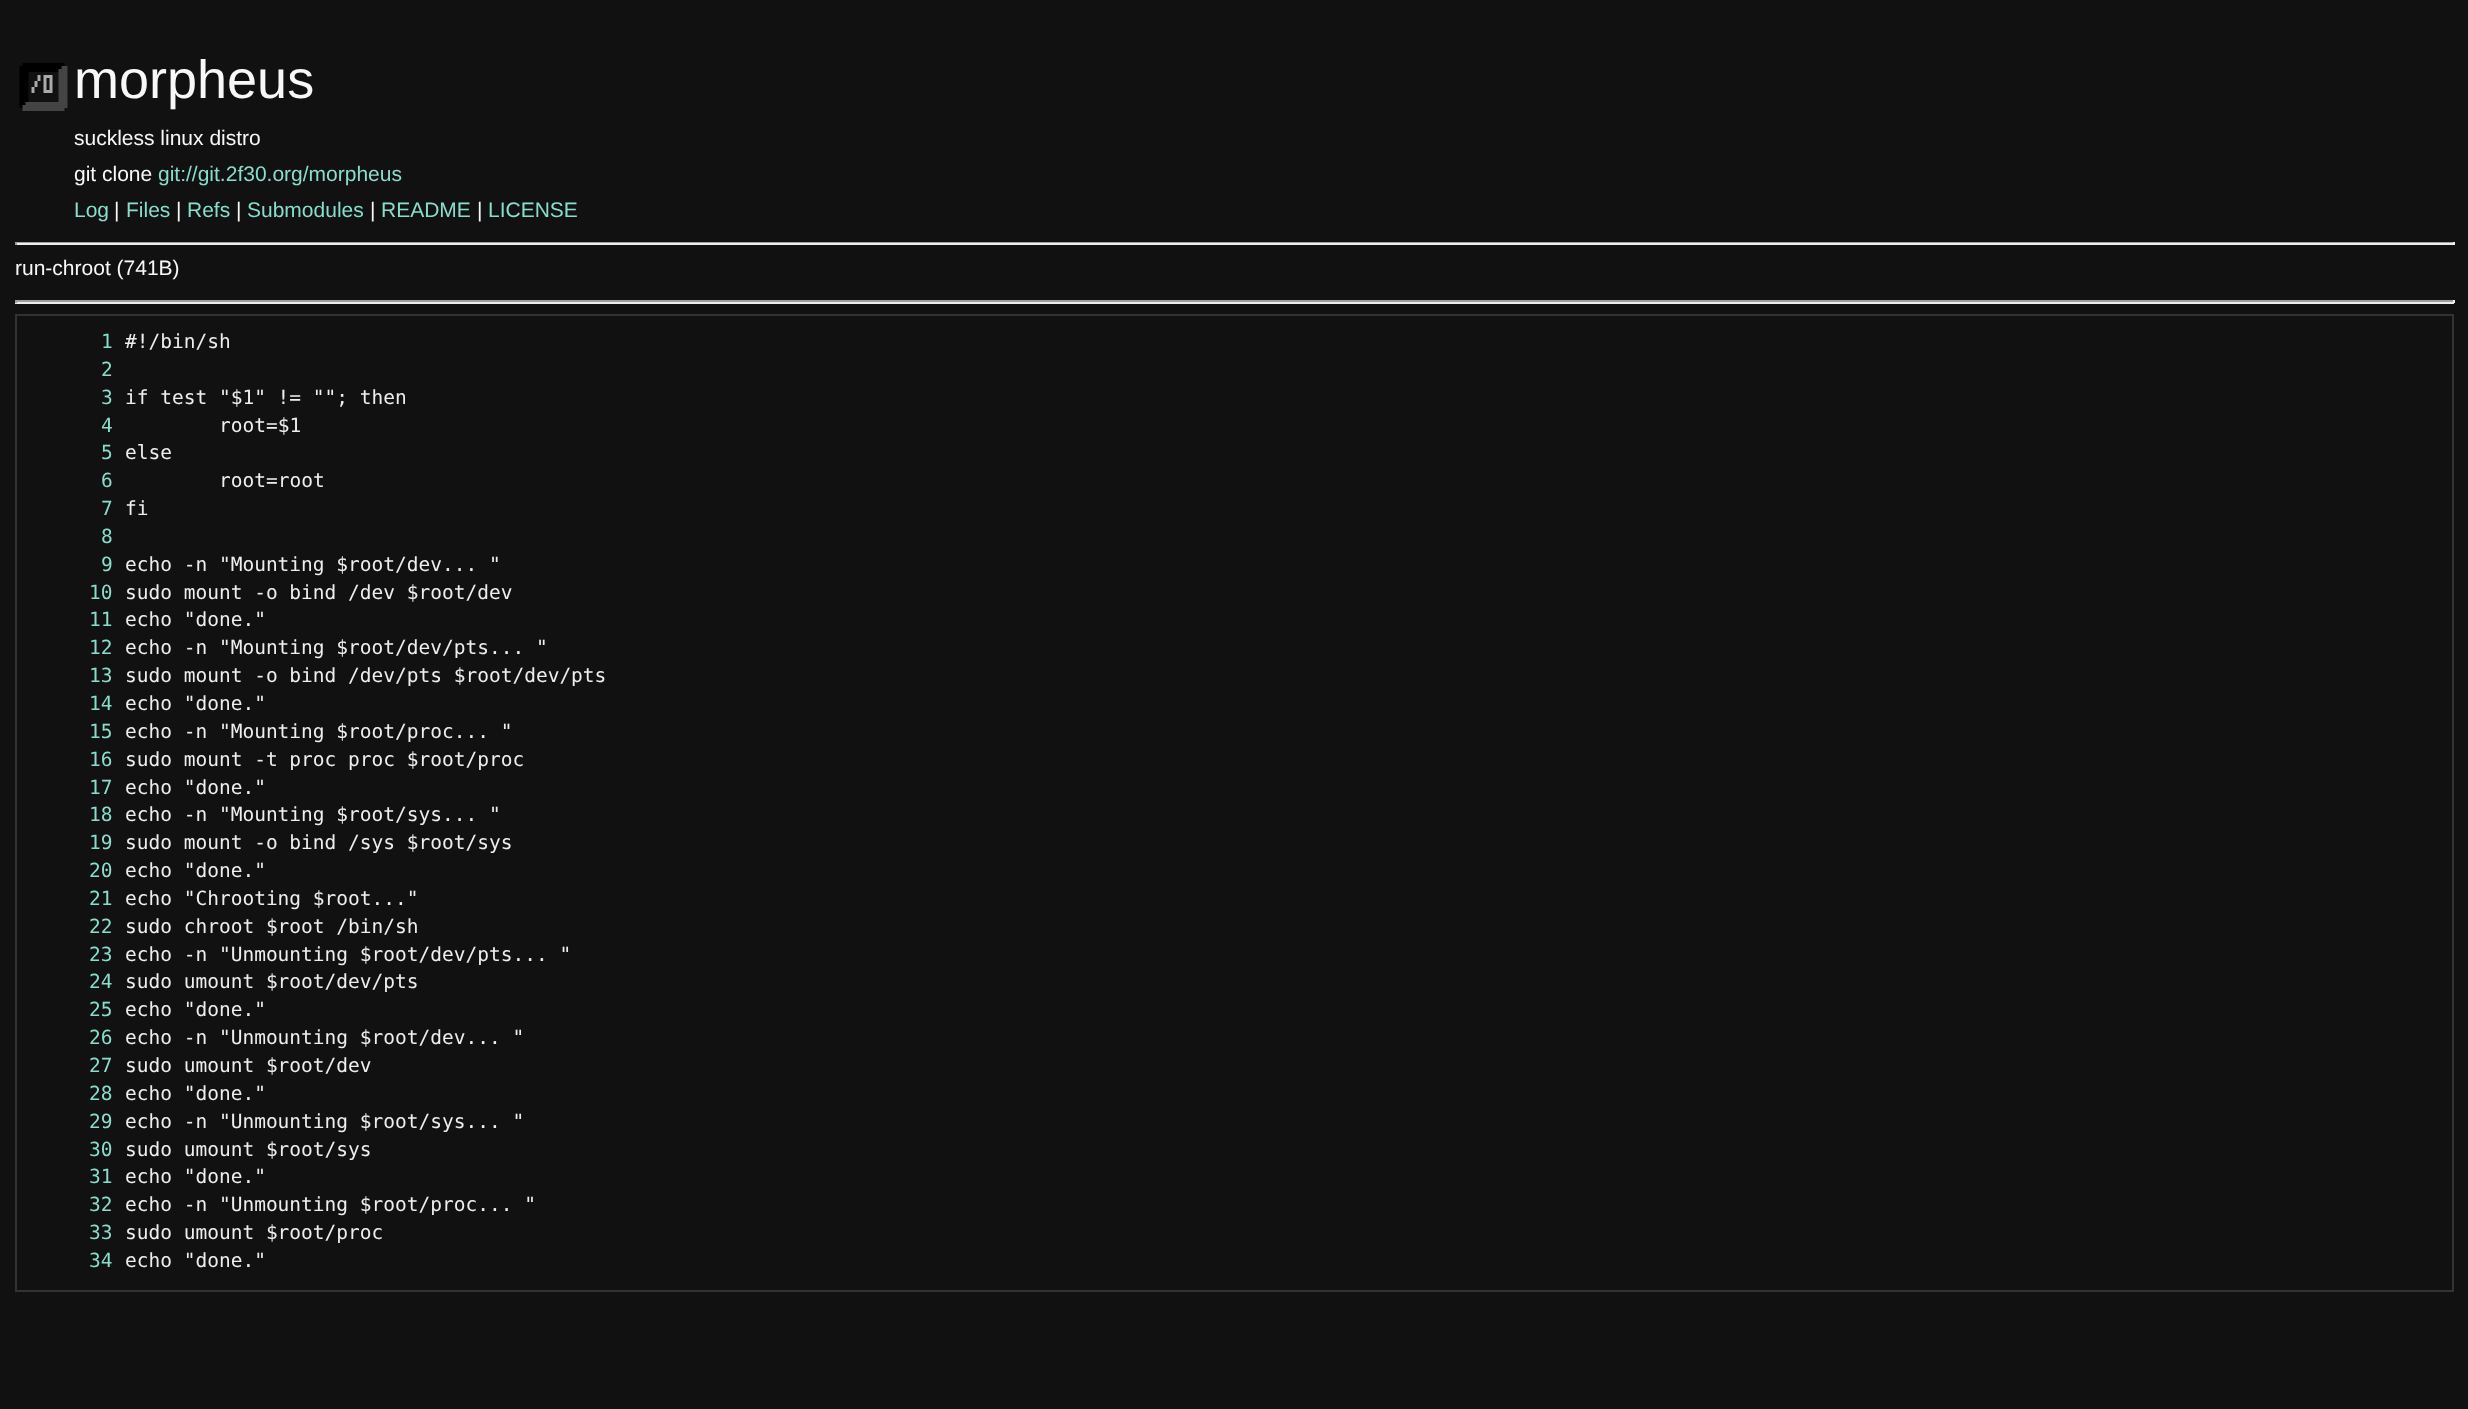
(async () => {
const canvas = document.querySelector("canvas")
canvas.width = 2468
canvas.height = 1409
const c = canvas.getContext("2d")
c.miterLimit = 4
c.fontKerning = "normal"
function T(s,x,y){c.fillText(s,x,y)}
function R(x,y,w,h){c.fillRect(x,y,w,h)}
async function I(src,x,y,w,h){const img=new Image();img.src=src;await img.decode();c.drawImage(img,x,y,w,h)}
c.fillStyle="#111"
R(0,0,2468,1409)
await I("1.png",19,63,49,48)
c.font="54px Liberation Sans"
c.fillStyle="#f8f8f8"
T("morpheus",74,98)
c.font="21px Liberation Sans"
T("suckless linux distro",74,145)
T("git clone",74,181)
c.fillStyle="#8dc"
T("git://git.2f30.org/morpheus",158,181)
T("Log",74,217)
c.fillStyle="#f8f8f8"
T("|",114,217)
c.fillStyle="#8dc"
T("Files",126,217)
c.fillStyle="#f8f8f8"
T("|",176,217)
c.fillStyle="#8dc"
T("Refs",187,217)
c.fillStyle="#f8f8f8"
T("|",236,217)
c.fillStyle="#8dc"
T("Submodules",247,217)
c.fillStyle="#f8f8f8"
T("|",370,217)
c.fillStyle="#8dc"
T("README",381,217)
c.fillStyle="#f8f8f8"
T("|",477,217)
c.fillStyle="#8dc"
T("LICENSE",488,217)
c.fillStyle="#9f9f9f"
R(15,242,2439,1)
c.fillStyle="#eee"
R(2453,242,2,3)
R(15,243,2439,2)
c.fillStyle="#9f9f9f"
R(15,242,2,3)
c.fillStyle="#f8f8f8"
T("run-chroot (741B)",15,275)
c.fillStyle="#9f9f9f"
R(15,300,2439,2)
c.fillStyle="#eee"
R(2453,300,2,3)
R(15,302,2439,2)
c.fillStyle="#9f9f9f"
R(15,300,2,3)
c.strokeStyle="#333"
c.lineWidth=2
c.strokeRect(16,315,2437,976)
c.font="19.5px DejaVu Sans Mono"
c.fillStyle="#8dc"
T("1",101,348)
c.fillStyle="#eee"
T("#!/bin/sh",125,348)
c.fillStyle="#8dc"
T("2",101,376)
T("3",101,404)
c.fillStyle="#eee"
T("if test \"$1\" != \"\"; then",125,404)
c.fillStyle="#8dc"
T("4",101,432)
c.fillStyle="#eee"
T("root=$1",219,432)
c.fillStyle="#8dc"
T("5",101,459)
c.fillStyle="#eee"
T("else",125,459)
c.fillStyle="#8dc"
T("6",101,487)
c.fillStyle="#eee"
T("root=root",219,487)
c.fillStyle="#8dc"
T("7",101,515)
c.fillStyle="#eee"
T("fi",125,515)
c.fillStyle="#8dc"
T("8",101,543)
T("9",101,571)
c.fillStyle="#eee"
T("echo -n \"Mounting $root/dev... \"",125,571)
c.fillStyle="#8dc"
T("10",89,599)
c.fillStyle="#eee"
T("sudo mount -o bind /dev $root/dev",125,599)
c.fillStyle="#8dc"
T("11",89,626)
c.fillStyle="#eee"
T("echo \"done.\"",125,626)
c.fillStyle="#8dc"
T("12",89,654)
c.fillStyle="#eee"
T("echo -n \"Mounting $root/dev/pts... \"",125,654)
c.fillStyle="#8dc"
T("13",89,682)
c.fillStyle="#eee"
T("sudo mount -o bind /dev/pts $root/dev/pts",125,682)
c.fillStyle="#8dc"
T("14",89,710)
c.fillStyle="#eee"
T("echo \"done.\"",125,710)
c.fillStyle="#8dc"
T("15",89,738)
c.fillStyle="#eee"
T("echo -n \"Mounting $root/proc... \"",125,738)
c.fillStyle="#8dc"
T("16",89,766)
c.fillStyle="#eee"
T("sudo mount -t proc proc $root/proc",125,766)
c.fillStyle="#8dc"
T("17",89,794)
c.fillStyle="#eee"
T("echo \"done.\"",125,794)
c.fillStyle="#8dc"
T("18",89,821)
c.fillStyle="#eee"
T("echo -n \"Mounting $root/sys... \"",125,821)
c.fillStyle="#8dc"
T("19",89,849)
c.fillStyle="#eee"
T("sudo mount -o bind /sys $root/sys",125,849)
c.fillStyle="#8dc"
T("20",89,877)
c.fillStyle="#eee"
T("echo \"done.\"",125,877)
c.fillStyle="#8dc"
T("21",89,905)
c.fillStyle="#eee"
T("echo \"Chrooting $root...\"",125,905)
c.fillStyle="#8dc"
T("22",89,933)
c.fillStyle="#eee"
T("sudo chroot $root /bin/sh",125,933)
c.fillStyle="#8dc"
T("23",89,961)
c.fillStyle="#eee"
T("echo -n \"Unmounting $root/dev/pts... \"",125,961)
c.fillStyle="#8dc"
T("24",89,988)
c.fillStyle="#eee"
T("sudo umount $root/dev/pts",125,988)
c.fillStyle="#8dc"
T("25",89,1016)
c.fillStyle="#eee"
T("echo \"done.\"",125,1016)
c.fillStyle="#8dc"
T("26",89,1044)
c.fillStyle="#eee"
T("echo -n \"Unmounting $root/dev... \"",125,1044)
c.fillStyle="#8dc"
T("27",89,1072)
c.fillStyle="#eee"
T("sudo umount $root/dev",125,1072)
c.fillStyle="#8dc"
T("28",89,1100)
c.fillStyle="#eee"
T("echo \"done.\"",125,1100)
c.fillStyle="#8dc"
T("29",89,1128)
c.fillStyle="#eee"
T("echo -n \"Unmounting $root/sys... \"",125,1128)
c.fillStyle="#8dc"
T("30",89,1156)
c.fillStyle="#eee"
T("sudo umount $root/sys",125,1156)
c.fillStyle="#8dc"
T("31",89,1183)
c.fillStyle="#eee"
T("echo \"done.\"",125,1183)
c.fillStyle="#8dc"
T("32",89,1211)
c.fillStyle="#eee"
T("echo -n \"Unmounting $root/proc... \"",125,1211)
c.fillStyle="#8dc"
T("33",89,1239)
c.fillStyle="#eee"
T("sudo umount $root/proc",125,1239)
c.fillStyle="#8dc"
T("34",89,1267)
c.fillStyle="#eee"
T("echo \"done.\"",125,1267)
})()
